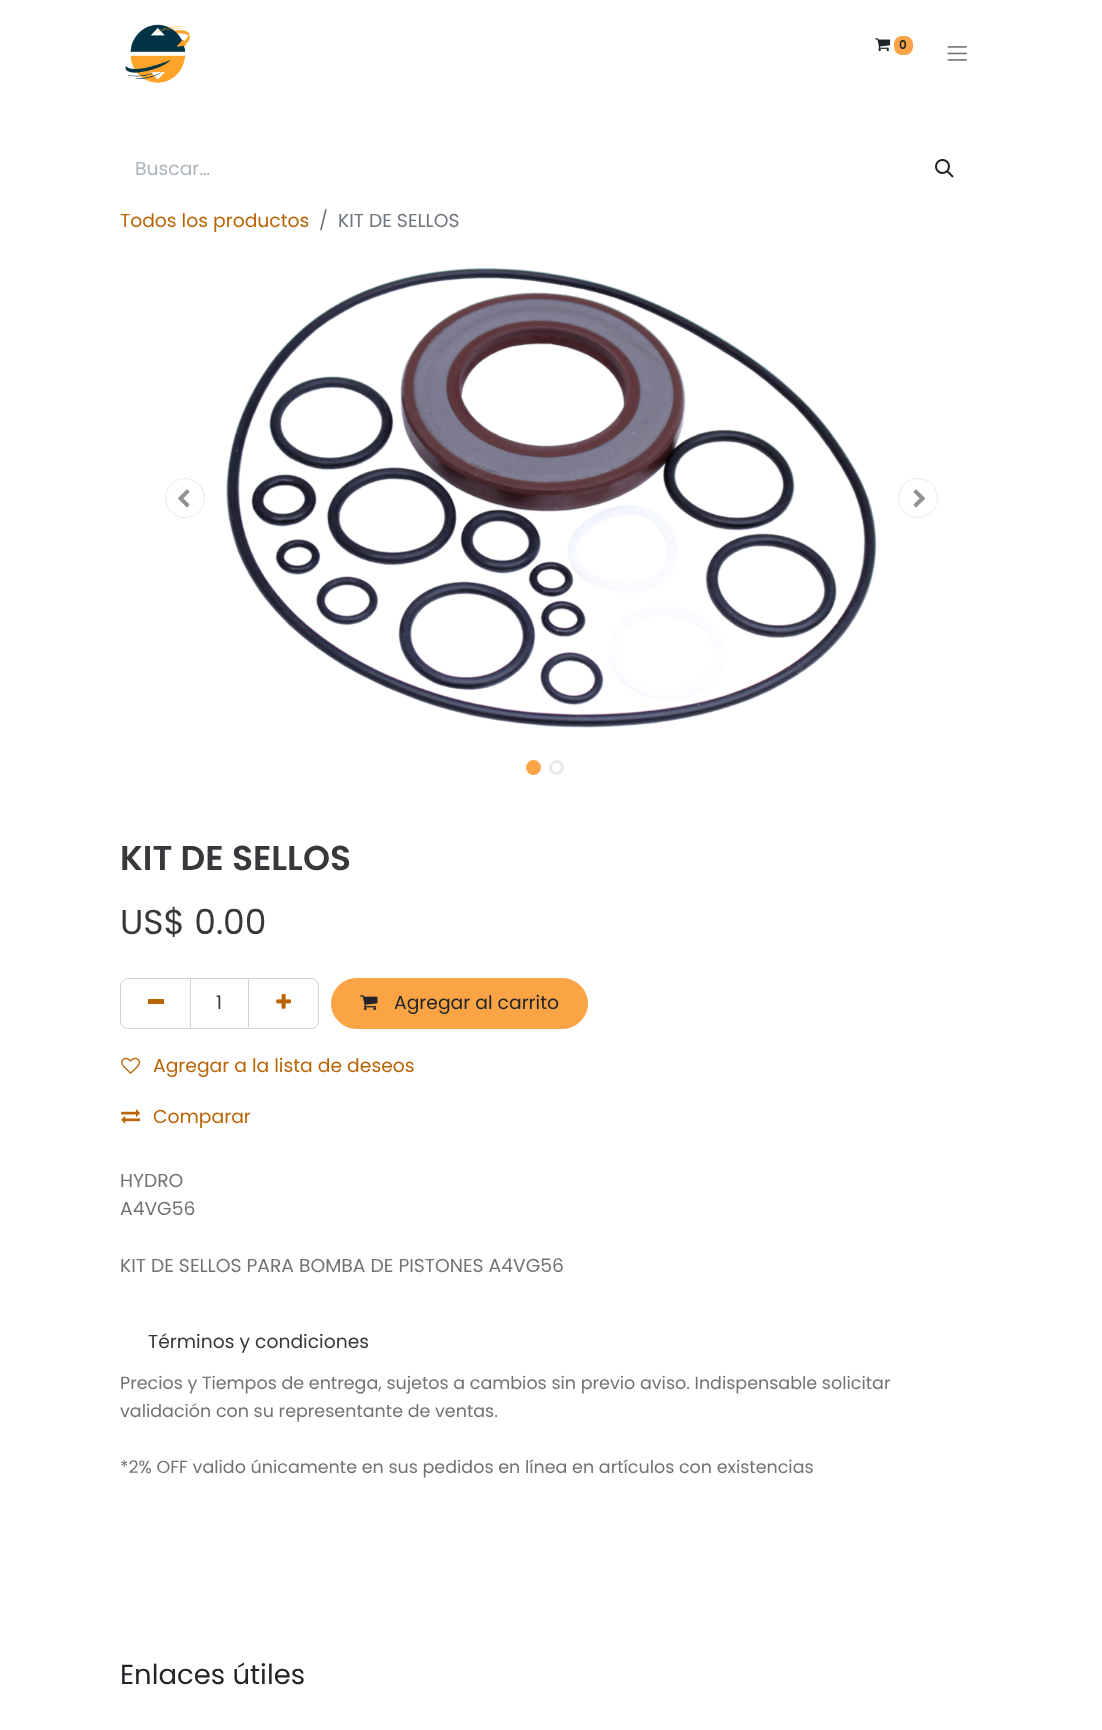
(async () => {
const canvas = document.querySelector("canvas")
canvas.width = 1102
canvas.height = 1730
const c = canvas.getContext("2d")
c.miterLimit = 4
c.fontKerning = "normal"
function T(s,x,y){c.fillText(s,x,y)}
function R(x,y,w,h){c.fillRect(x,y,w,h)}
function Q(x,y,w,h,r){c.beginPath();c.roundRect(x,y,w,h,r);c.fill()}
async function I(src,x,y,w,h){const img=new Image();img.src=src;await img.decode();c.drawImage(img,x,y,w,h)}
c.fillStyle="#fff"
R(0,0,1102,1730)
await I("1.png",125,24,65,59)
await I("2.png",875,38,16,14)
c.fillStyle="#faa445"
Q(894,36,19,19,8)
c.font="600 12px Poppins"
c.fillStyle="#212529"
T("0",899,49)
await I("3.png",947,46,20,15)
c.font="18.75px Poppins"
c.fillStyle="#adb5bd"
T("Buscar…",135,175)
await I("4.png",935,159,19,19)
c.fillStyle="#ba6405"
T("Todos los productos",120,227)
c.fillStyle="#6c757d"
T("/",319,227)
T("KIT DE SELLOS",338,227)
c.beginPath()
c.arc(185,498,19.5,0,7)
c.strokeStyle="#e7eaed"
c.stroke()
await I("5.png",178,489,12,19)
await I("6.png",226,268,651,460)
c.beginPath()
c.arc(918,498,19.5,0,7)
c.stroke()
await I("7.png",913,489,12,19)
c.fillStyle="#faa445"
c.beginPath()
c.arc(533.5,767.5,6,0,7)
c.fill()
c.strokeStyle="#faa445"
c.lineWidth=3
c.stroke()
c.beginPath()
c.arc(556.5,767.5,6,0,7)
c.strokeStyle="#e7eaed"
c.stroke()
c.font="600 34.5px Poppins"
c.fillStyle="#36383b"
T("KIT DE SELLOS",120,870)
c.font="34.5px Poppins"
T("US$ 0.00",120,934)
c.strokeStyle="#ced4da"
c.lineWidth=1
c.strokeRect(190.5,978.5,58,50)
c.beginPath()
c.roundRect(120.5,978.5,70,50,[7.5,0,0,7.5])
c.stroke()
c.fillStyle="#ba6405"
R(148,999,16,5)
c.font="18.75px Poppins"
c.fillStyle="#36383b"
T("1",216,1009)
c.beginPath()
c.roundRect(248.5,978.5,70,50,[0,7.5,7.5,0])
c.stroke()
await I("8.png",276,994,15,15)
c.fillStyle="#faa445"
c.beginPath()
c.roundRect(331.5,978.5,256,50,25)
c.fill()
c.strokeStyle="#faa445"
c.stroke()
await I("9.png",360,995,18,16)
c.fillStyle="#212529"
T("Agregar al carrito",394,1009)
await I("10.png",121,1057,19,17)
c.fillStyle="#ba6405"
T("Agregar a la lista de deseos",153,1072)
await I("11.png",121,1109,19,15)
T("Comparar",153,1123)
c.fillStyle="#727376"
T("HYDRO",120,1187)
T("A4VG56",120,1215)
T("KIT DE SELLOS PARA BOMBA DE PISTONES A4VG56",120,1272)
c.fillStyle="#36383b"
T("Términos y condiciones",148,1348)
c.font="17.5px Poppins"
c.fillStyle="#727376"
T("Precios y Tiempos de entrega, sujetos a cambios sin previo aviso. Indispensable solicitar",120,1389)
T("validación con su representante de ventas.",120,1417)
T("*2% OFF valido únicamente en sus pedidos en línea en artículos con existencias",120,1473)
c.font="27.5px Poppins"
c.fillStyle="#212529"
T("Enlaces útiles",120,1684)
})()
